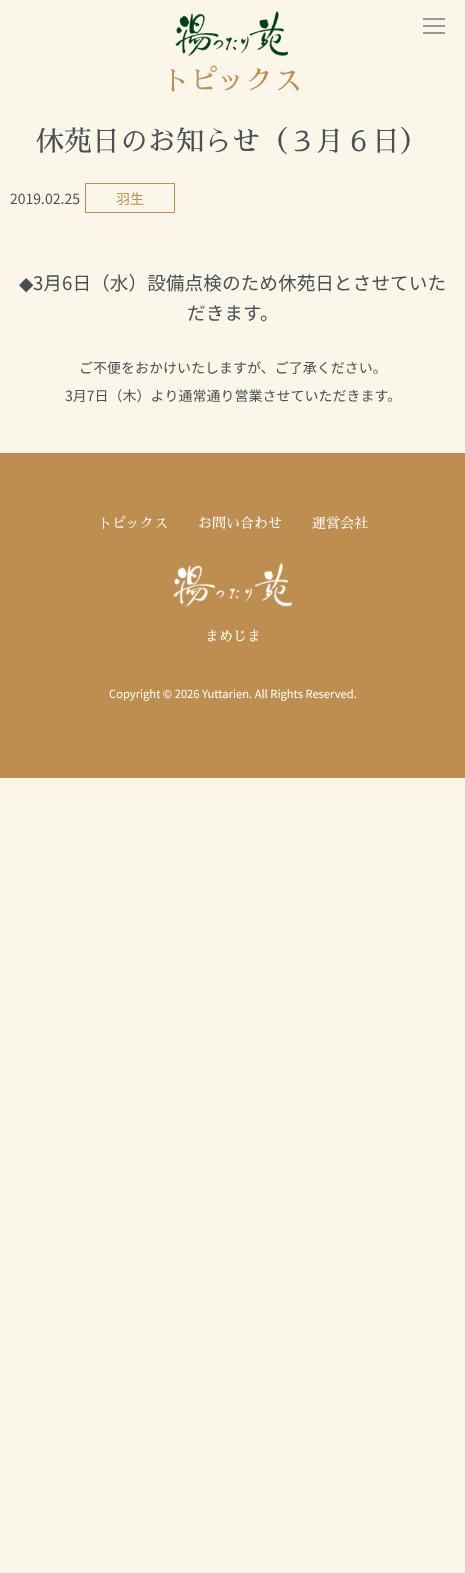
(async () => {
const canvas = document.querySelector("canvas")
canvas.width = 465
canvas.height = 1573
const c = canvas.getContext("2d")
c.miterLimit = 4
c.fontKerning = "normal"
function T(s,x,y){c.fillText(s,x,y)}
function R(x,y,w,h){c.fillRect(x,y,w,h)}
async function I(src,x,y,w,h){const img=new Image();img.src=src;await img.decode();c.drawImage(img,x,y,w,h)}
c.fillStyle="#fbf6ea"
R(0,0,465,1573)
await I("1.png",173,11,115,46)
c.fillStyle="#999"
R(423,25,22,2)
R(423,18,22,2)
R(423,32,22,2)
c.font="28px Sawarabi Mincho"
c.fillStyle="#be8e50"
T("トピックス",162,90)
c.fillStyle="#4a4e55"
T("休苑日のお知らせ（３月６日）",36,151)
c.font="14px Noto Sans JP"
T("2019.02.25",10,204)
c.strokeStyle="#be8e50"
c.strokeRect(85.5,183.5,89,29)
c.fillStyle="#be8e50"
T("羽生",116,204)
c.font="18.7px DejaVu Sans"
c.fillStyle="#4a4e55"
T("◆",19,290)
c.font="18.7px Noto Sans JP"
T("3月6日（水）設備点検のため休苑日とさせていた",33,290)
T("だきます。",187,320)
c.font="14px Noto Sans JP"
T("ご不便をおかけいたしますが、ご了承ください。",79,373)
T("3月7日（木）より通常通り営業させていただきます。",65,401)
c.fillStyle="#be8e50"
R(0,453,465,325)
c.font="14px Sawarabi Mincho"
c.fillStyle="#fff"
T("トピックス",98,528)
T("お問い合わせ",198,528)
T("運営会社",312,528)
await I("2.png",173,563,119,44)
T("まめじま",205,641)
c.font="11.2px Noto Sans JP"
T("Copyright © 2026 Yuttarien. All Rights Reserved.",109,698)
})()
